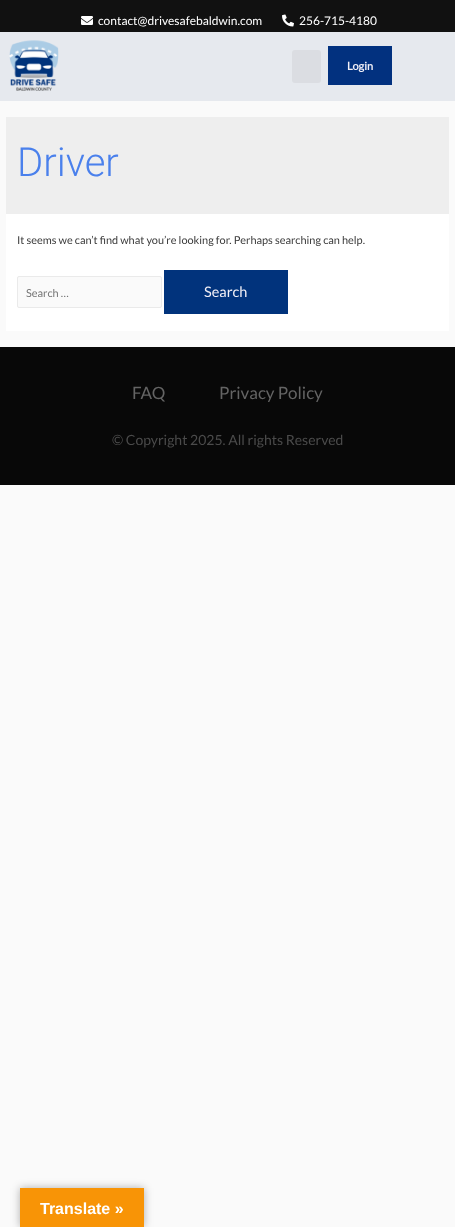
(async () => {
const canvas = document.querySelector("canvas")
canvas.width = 455
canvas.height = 1227
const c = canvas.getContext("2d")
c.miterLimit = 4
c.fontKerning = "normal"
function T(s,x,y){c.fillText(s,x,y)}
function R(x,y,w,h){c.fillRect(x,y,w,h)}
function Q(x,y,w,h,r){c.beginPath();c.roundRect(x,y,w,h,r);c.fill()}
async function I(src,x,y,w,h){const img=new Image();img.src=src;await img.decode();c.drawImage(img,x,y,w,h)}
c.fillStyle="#fafafa"
R(0,0,455,1227)
c.fillStyle="#111"
R(0,0,455,32)
await I("1.png",81,16,12,9)
c.font="12px Lato"
c.fillStyle="#fff"
T("contact@drivesafebaldwin.com",98,25)
await I("2.png",282,14,12,13)
T("256-715-4180",299,25)
c.fillStyle="#e6e9ee"
R(0,32,455,69)
await I("3.png",9,40,50,51)
c.fillStyle="#dbdde2"
Q(292,50,29,33,3)
c.fillStyle="#02317f"
R(328,46,64,39)
c.font="bold 11px Lato"
c.fillStyle="#f2f0f7"
T("Login",347,70)
c.fillStyle="#eee"
R(6,117,443,97)
c.font="300 40px Roboto"
c.fillStyle="#4a80ec"
T("Driver",17,176)
c.fillStyle="#fff"
R(6,214,443,117)
c.font="10.95px Lato"
c.fillStyle="#3a3a3a"
T("It seems we can’t find what you’re looking for. Perhaps searching can help.",17,244)
c.fillStyle="#fafafa"
c.beginPath()
c.roundRect(17.5,276.5,144,31,1.5)
c.fill()
c.strokeStyle="#eaeaea"
c.stroke()
c.fillStyle="#757575"
T("Search …",26,297)
c.fillStyle="#01337c"
R(164,270,124,44)
c.font="14.5px Lato"
c.fillStyle="#f2f0f7"
T("Search",204,297)
c.fillStyle="#080808"
R(0,347,455,138)
c.font="17px Lato"
c.fillStyle="#646464"
T("FAQ",132,399)
T("Privacy Policy",219,399)
c.font="14px Lato"
c.fillStyle="#4b4b4b"
T("© Copyright 2025. All rights Reserved",112,445)
c.fillStyle="#0000004d"
c.filter="blur(4.5px)"
c.beginPath()
c.rect(20,1188,124,39)
c.fill()
c.filter="none"
c.fillStyle="#f89406"
R(20,1188,124,39)
c.font="bold 16px Liberation Sans"
c.fillStyle="#fff"
T("Translate »",40,1214)
})()
